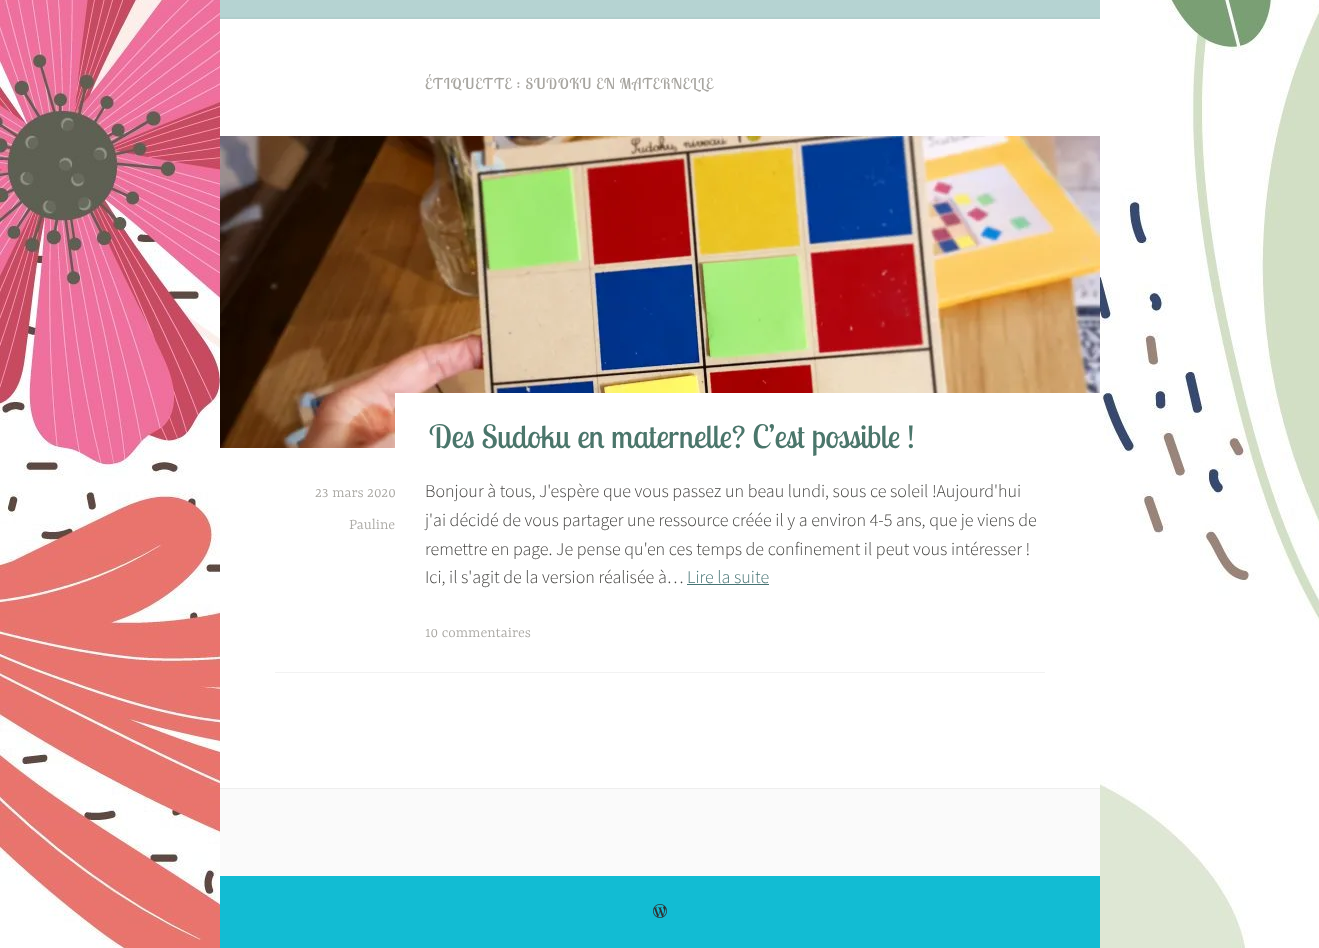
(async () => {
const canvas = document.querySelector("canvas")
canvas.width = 1319
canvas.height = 948
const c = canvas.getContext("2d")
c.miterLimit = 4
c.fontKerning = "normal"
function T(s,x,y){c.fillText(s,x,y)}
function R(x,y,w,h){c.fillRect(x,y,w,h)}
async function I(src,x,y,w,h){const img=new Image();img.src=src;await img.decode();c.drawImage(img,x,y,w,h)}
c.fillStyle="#fff"
R(0,0,1319,948)
await I("1.png",0,0,1319,948)
c.fillStyle="#b5d3d2"
R(220,0,880,17)
c.fillStyle="#b0cdcc"
R(220,17,880,2)
c.fillStyle="#fff"
R(220,19,880,769)
c.letterSpacing="1px"
c.font="15px Lobster Two"
c.fillStyle="#a8a6a1"
T("ÉTIQUETTE : SUDOKU EN MATERNELLE",425,89)
await I("2.png",220,136,880,312)
c.fillStyle="#fff"
R(395,393,705,55)
c.letterSpacing="0px"
c.font="32px Lobster Two"
c.fillStyle="#4b766b"
T("Des Sudoku en maternelle? C’est possible !",429,448)
c.font="300 16px Yrsa"
c.fillStyle="#a8a6a1"
T("23 mars 2020",315,497)
T("Pauline",349,529)
c.font="300 18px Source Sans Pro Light"
c.fillStyle="#444340"
T("Bonjour à tous, J'espère que vous passez un beau lundi, sous ce soleil !Aujourd'hui",425,497)
T("j'ai décidé de vous partager une ressource créée il y a environ 4-5 ans, que je viens de",425,526)
T("remettre en page. Je pense qu'en ces temps de confinement il peut vous intéresser !",425,555)
T("Ici, il s'agit de la version réalisée à…",425,583)
c.fillStyle="#477474"
T("Lire la suite",687,583)
R(687,584,82,1)
c.font="300 16px Yrsa"
c.fillStyle="#a8a6a1"
T("10 commentaires",425,637)
c.fillStyle="#f2f2f2"
R(275,672,770,1)
c.fillStyle="#fafafa"
R(220,789,880,87)
c.fillStyle="#eee"
R(220,788,880,1)
c.fillStyle="#12bcd3"
R(220,876,880,72)
await I("3.png",653,904,14,14)
})()
